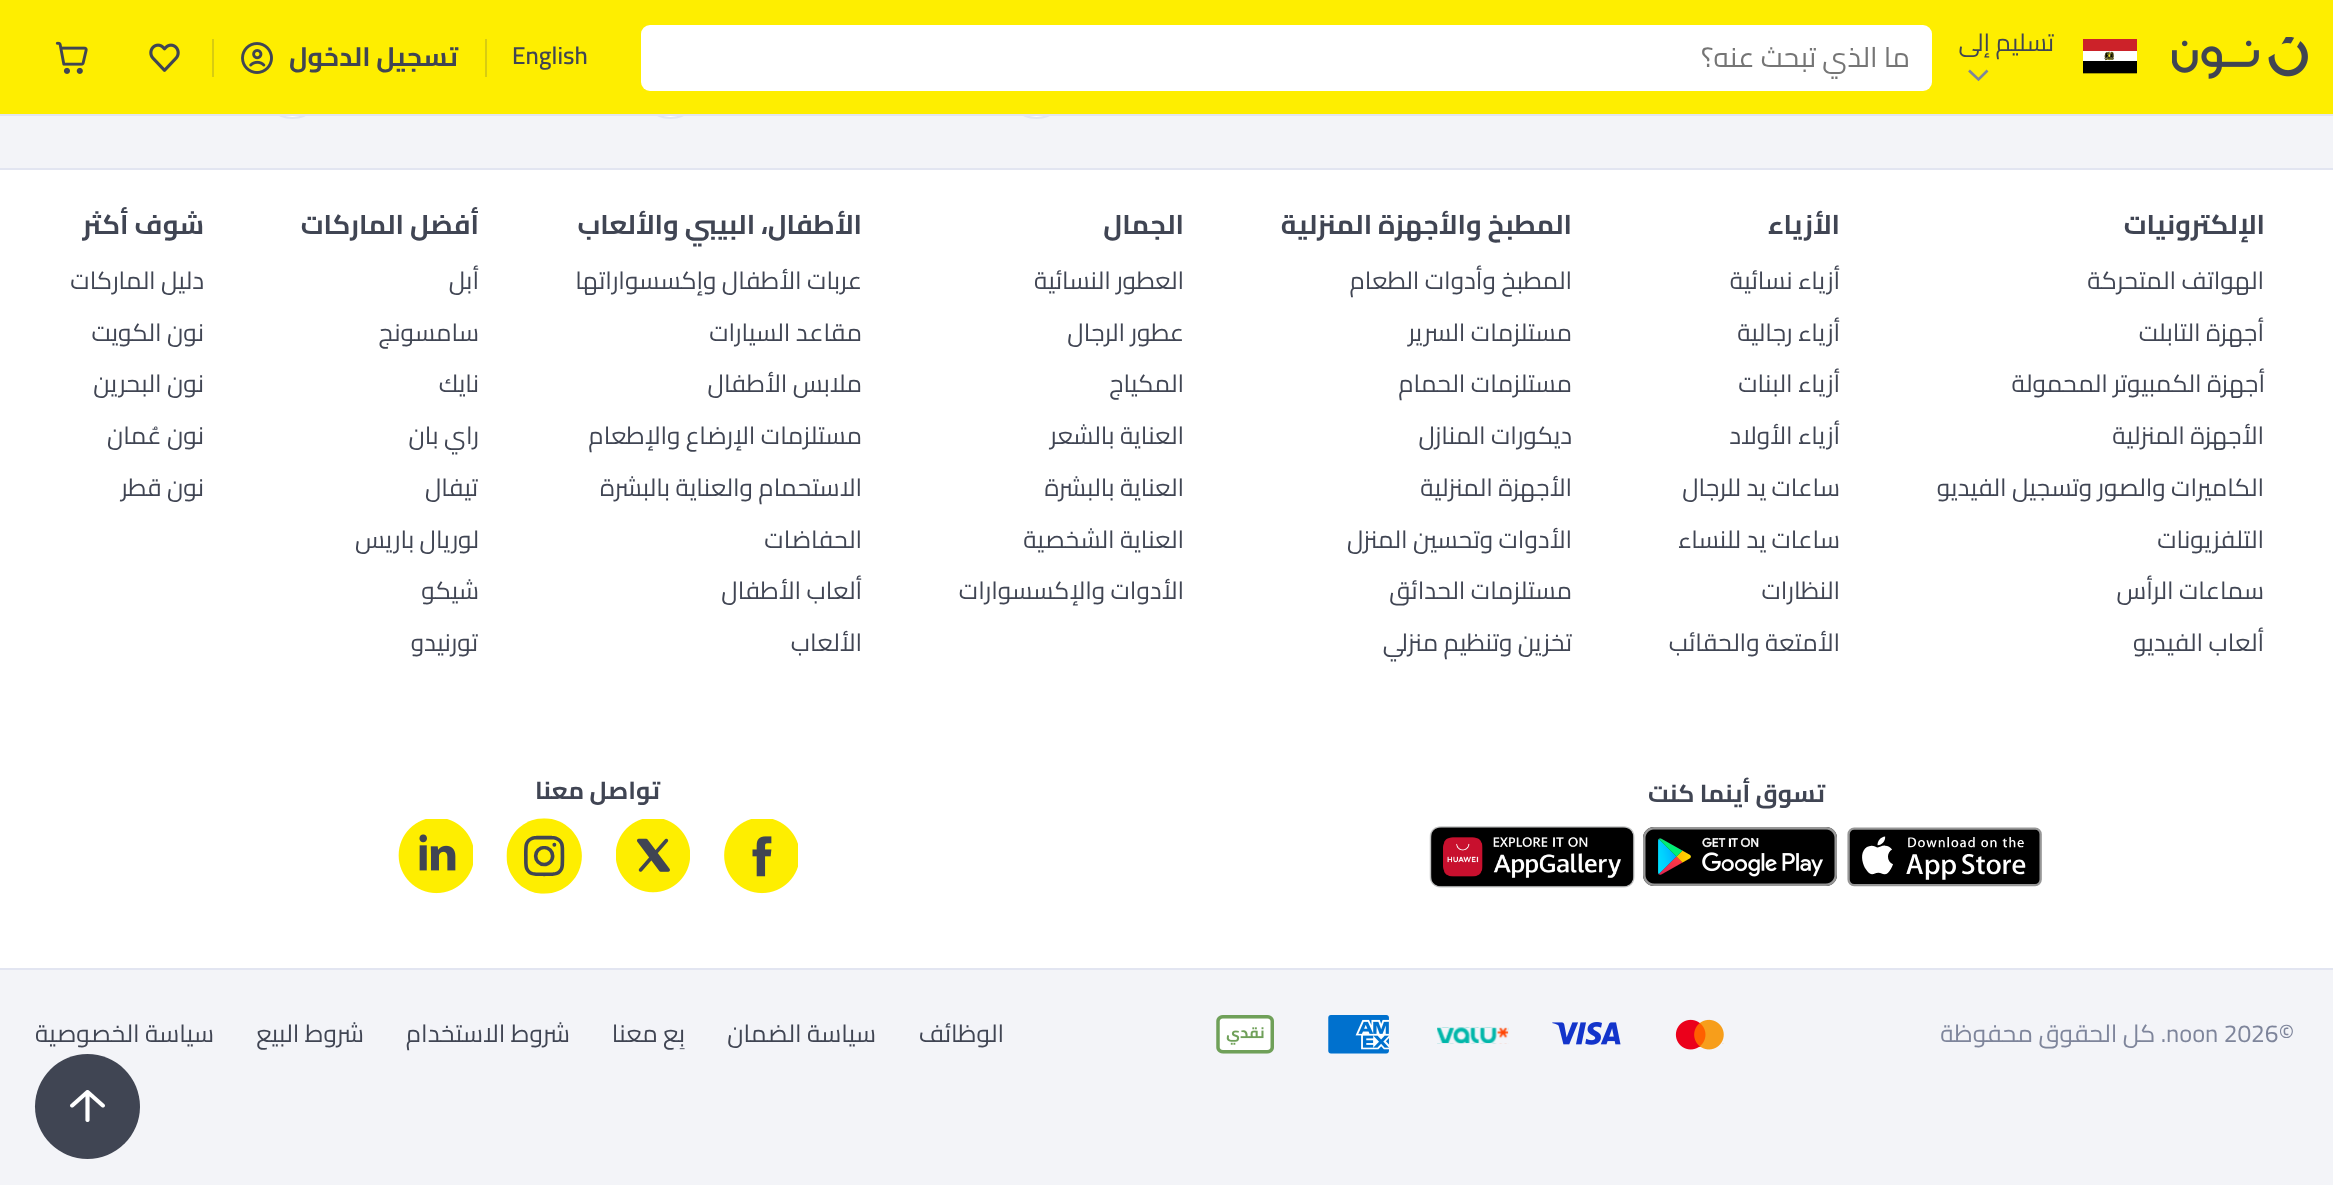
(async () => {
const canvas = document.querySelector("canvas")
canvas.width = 2333
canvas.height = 1185
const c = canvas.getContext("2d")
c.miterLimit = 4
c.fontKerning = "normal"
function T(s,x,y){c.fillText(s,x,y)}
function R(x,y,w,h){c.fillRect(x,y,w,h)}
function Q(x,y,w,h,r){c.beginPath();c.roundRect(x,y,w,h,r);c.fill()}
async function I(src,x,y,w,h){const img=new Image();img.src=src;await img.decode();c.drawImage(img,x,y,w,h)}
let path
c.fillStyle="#f3f4f8"
R(0,0,2333,1185)
c.fillStyle="#fff"
c.beginPath()
c.arc(1036.5,87.5,30.5,0,7)
c.fill()
c.strokeStyle="#e2e5f1"
c.lineWidth=2
c.stroke()
c.beginPath()
c.arc(670.5,87.5,30.5,0,7)
c.fill()
c.stroke()
c.beginPath()
c.arc(292.5,87.5,30.5,0,7)
c.fill()
c.stroke()
c.fillStyle="#feee00"
R(0,0,2333,114)
await I("1.png",2172,37,136,42)
await I("2.png",2083,39,54,35)
c.direction="rtl"
c.font="24.5px Cairo"
c.fillStyle="#404553"
T("تسليم إلى",2054,51)
path = new Path2D("M1987.5 70.5l-9 9l-9.5-9")
c.strokeStyle="#7e859b"
c.lineWidth=2.6
c.stroke(path)
c.fillStyle="#fff"
Q(641,25,1291,66,9)
c.font="28px Cairo"
c.fillStyle="#757575"
T("ما الذي تبحث عنه؟",1910,67)
c.direction="ltr"
c.font="600 24.5px Cairo"
c.fillStyle="#404553"
T("English",512,64)
c.fillStyle="#d8cc11"
R(485,39,2,38)
c.direction="rtl"
c.font="bold 26.5px Cairo"
c.fillStyle="#404553"
T("تسجيل الدخول",458,66)
await I("3.png",241,42,32,32)
c.fillStyle="#d8cc11"
R(212,39,2,38)
await I("4.png",149,43,31,29)
await I("5.png",55,41,33,33)
c.fillStyle="#e2e5f1"
R(0,114,2333,2)
c.fillStyle="#fff"
R(0,170,2333,798)
c.fillStyle="#e2e5f1"
R(0,168,2333,2)
c.font="bold 27px Cairo"
c.fillStyle="#404553"
T("الإلكترونيات",2265,234)
c.font="24.5px Cairo"
T("الهواتف المتحركة",2264,289)
T("أجهزة التابلت",2264,341)
T("أجهزة الكمبيوتر المحمولة",2265,392)
T("الأجهزة المنزلية",2264,444)
T("الكاميرات والصور وتسجيل الفيديو",2264,496)
T("التلفزيونات",2264,548)
T("سماعات الرأس",2264,599)
T("ألعاب الفيديو",2264,651)
c.font="bold 27px Cairo"
T("الأزياء",1840,234)
c.font="24.5px Cairo"
T("أزياء نسائية",1840,289)
T("أزياء رجالية",1840,341)
T("أزياء البنات",1840,392)
T("أزياء الأولاد",1840,444)
T("ساعات يد للرجال",1840,496)
T("ساعات يد للنساء",1840,548)
T("النظارات",1840,599)
T("الأمتعة والحقائب",1840,651)
c.font="bold 27px Cairo"
T("المطبخ والأجهزة المنزلية",1572,234)
c.font="24.5px Cairo"
T("المطبخ وأدوات الطعام",1572,289)
T("مستلزمات السرير",1572,341)
T("مستلزمات الحمام",1572,392)
T("ديكورات المنازل",1572,444)
T("الأجهزة المنزلية",1572,496)
T("الأدوات وتحسين المنزل",1572,548)
T("مستلزمات الحدائق",1572,599)
T("تخزين وتنظيم منزلي",1572,651)
c.font="bold 27px Cairo"
T("الجمال",1184,234)
c.font="24.5px Cairo"
T("العطور النسائية",1184,289)
T("عطور الرجال",1184,341)
T("المكياج",1184,392)
T("العناية بالشعر",1184,444)
T("العناية بالبشرة",1184,496)
T("العناية الشخصية",1184,548)
T("الأدوات والإكسسوارات",1184,599)
c.font="bold 27px Cairo"
T("الأطفال، البيبي والألعاب",862,234)
c.font="24.5px Cairo"
T("عربات الأطفال وإكسسواراتها",862,289)
T("مقاعد السيارات",862,341)
T("ملابس الأطفال",862,392)
T("مستلزمات الإرضاع والإطعام",862,444)
T("الاستحمام والعناية بالبشرة",862,496)
T("الحفاضات",862,548)
T("ألعاب الأطفال",862,599)
T("الألعاب",862,651)
c.font="bold 27px Cairo"
T("أفضل الماركات",479,234)
c.font="24.5px Cairo"
T("أبل",479,289)
T("سامسونج",479,341)
T("نايك",479,392)
T("راي بان",479,444)
T("تيفال",478,496)
T("لوريال باريس",479,548)
T("شيكو",479,599)
T("تورنيدو",478,651)
c.font="bold 27px Cairo"
T("شوف أكثر",204,234)
c.font="24.5px Cairo"
T("دليل الماركات",204,289)
T("نون الكويت",204,341)
T("نون البحرين",204,392)
T("نون عُمان",204,444)
T("نون قطر",204,496)
c.font="bold 24.5px Cairo"
T("تسوق أينما كنت",1825,802)
await I("6.png",1847,827,195,60)
await I("7.png",1643,827,194,59)
await I("8.png",1429,826,206,62)
T("تواصل معنا",660,799)
await I("9.png",724,819,74,75)
await I("10.png",616,819,74,74)
await I("11.png",506,818,76,76)
await I("12.png",398,819,75,75)
c.fillStyle="#e2e5f1"
R(0,968,2333,2)
c.direction="ltr"
c.font="24.5px Cairo"
c.fillStyle="#7e859b"
T("noon 2026©",2166,1042)
c.direction="rtl"
T(". كل الحقوق محفوظة",2166,1042)
await I("13.png",1675,1019,49,31)
await I("14.png",1552,1022,69,23)
await I("15.png",1437,1027,72,17)
await I("16.png",1328,1015,61,39)
await I("17.png",1216,1015,58,39)
c.fillStyle="#404553"
T("الوظائف",1004,1042)
T("سياسة الضمان",876,1042)
T("بِع معنا",685,1042)
T("شروط الاستخدام",570,1042)
T("شروط البيع",364,1042)
T("سياسة الخصوصية",214,1042)
c.beginPath()
c.arc(87.5,1106.5,52.5,0,7)
c.fill()
await I("18.png",70,1090,35,32)
})()
